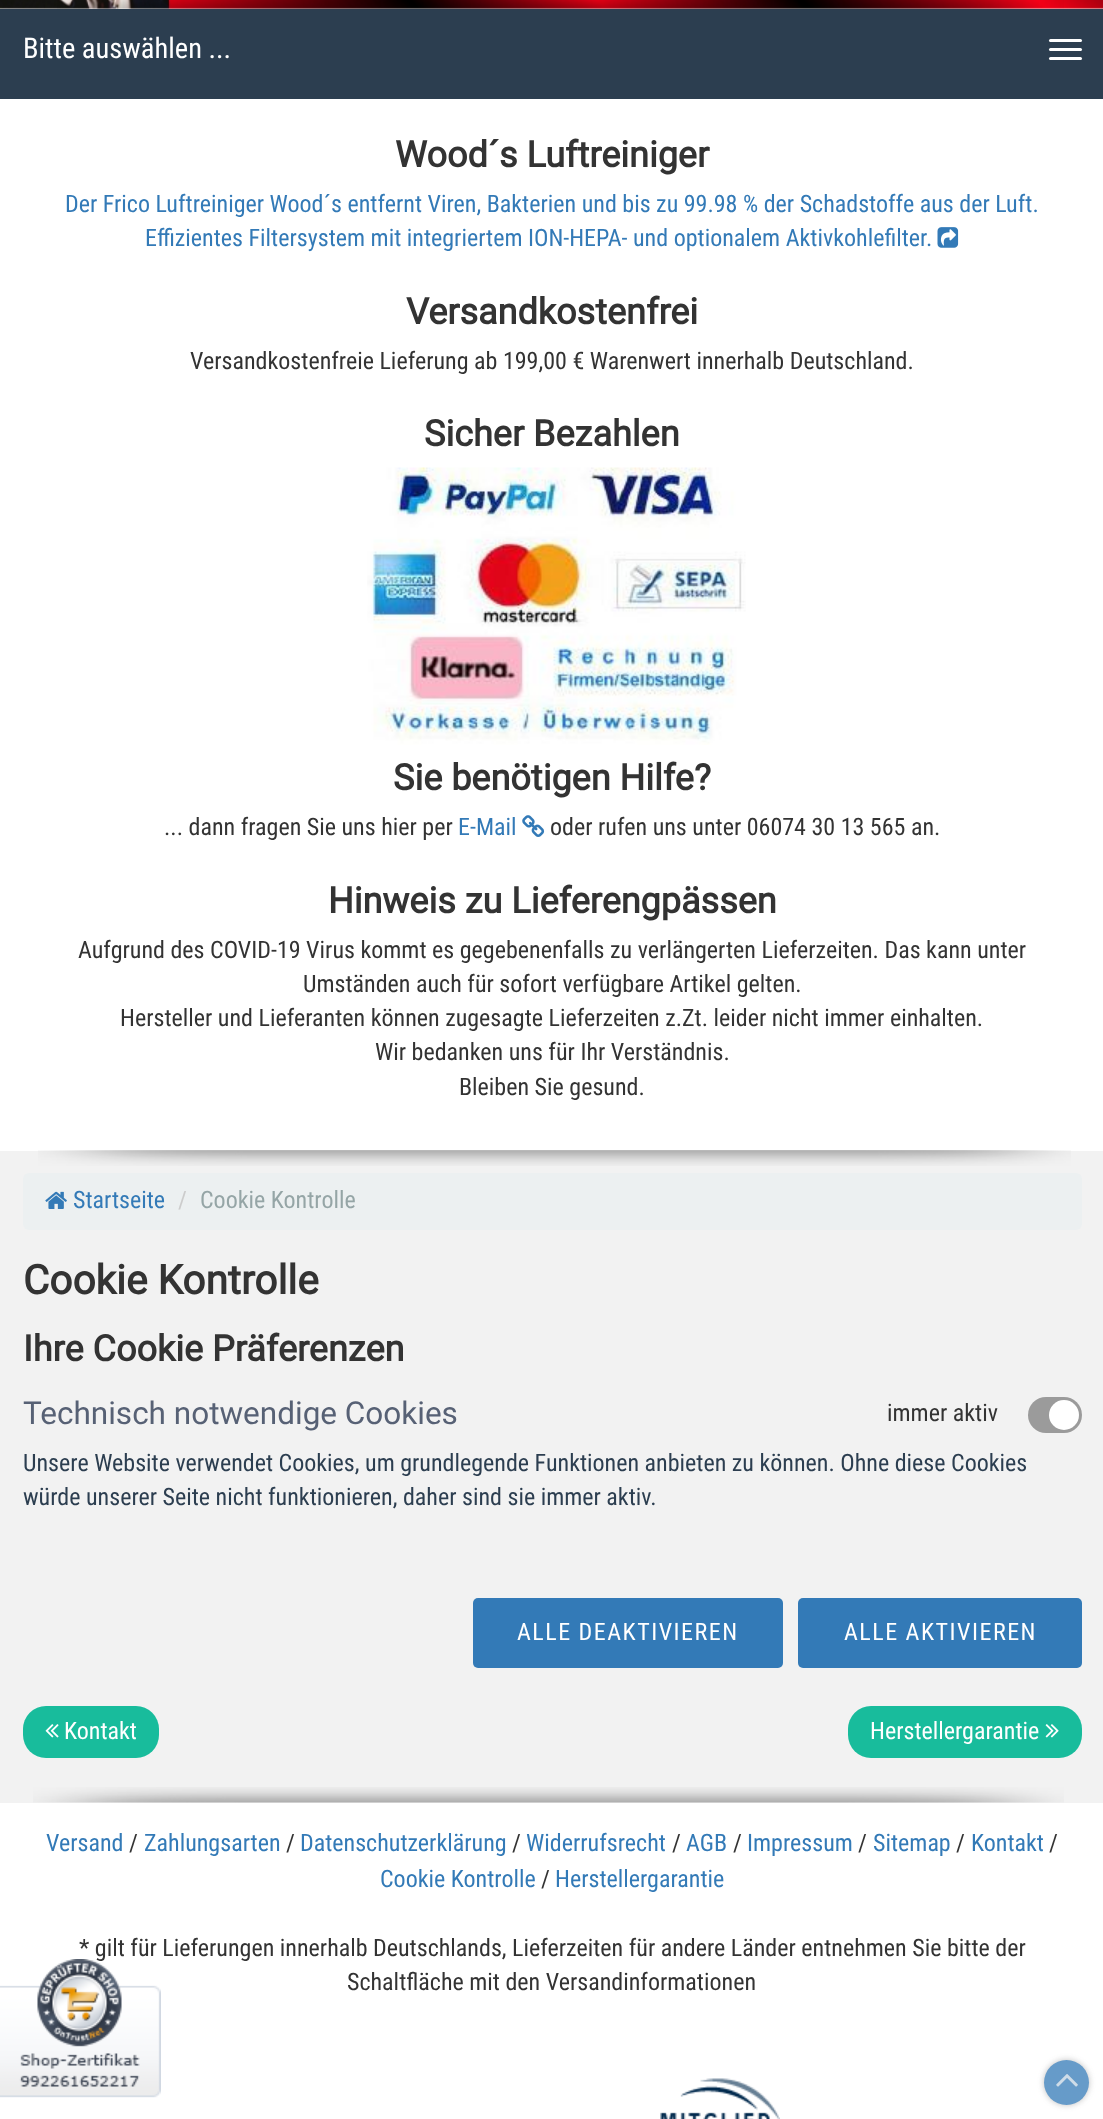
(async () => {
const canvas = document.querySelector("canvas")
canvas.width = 1103
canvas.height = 2119
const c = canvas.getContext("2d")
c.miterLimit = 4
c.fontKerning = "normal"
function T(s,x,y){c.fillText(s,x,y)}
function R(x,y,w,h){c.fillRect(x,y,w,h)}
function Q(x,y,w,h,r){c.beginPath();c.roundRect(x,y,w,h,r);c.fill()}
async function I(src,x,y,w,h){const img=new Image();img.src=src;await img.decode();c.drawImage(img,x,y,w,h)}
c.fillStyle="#fff"
R(0,0,1103,2119)
c.fillStyle="#f2f2f2"
R(0,7,1103,2)
await I("1.png",0,0,1103,9)
await I("2.png",57,0,1007,9)
c.fillStyle="#2c3e50"
R(0,9,1103,90)
c.font="28.5px Roboto Condensed"
c.fillStyle="#fff"
T("Bitte auswählen ...",23,58)
Q(1049,39,33,3,1.5)
Q(1049,48,33,3,1.5)
Q(1049,57,33,3,1.5)
c.font="bold 36px Roboto"
c.fillStyle="#333"
T("Wood´s Luftreiniger",395,167)
c.font="24px Roboto Condensed"
c.fillStyle="#337ab7"
T("Der Frico Luftreiniger Wood´s entfernt Viren, Bakterien und bis zu 99.98 % der Schadstoffe aus der Luft.",65,212)
T("Effizientes Filtersystem mit integriertem ION-HEPA- und optionalem Aktivkohlefilter.",145,246)
await I("3.png",937,227,22,21)
c.font="bold 36px Roboto"
c.fillStyle="#333"
T("Versandkostenfrei",406,324)
c.font="24px Roboto Condensed"
T("Versandkostenfreie Lieferung ab 199,00 € Warenwert innerhalb Deutschland.",190,369)
c.font="bold 36px Roboto"
T("Sicher Bezahlen",424,446)
await I("4.png",367,467,379,278)
T("Sie benötigen Hilfe?",393,790)
c.font="24px Roboto Condensed"
T("... dann fragen Sie uns hier per",164,835)
c.fillStyle="#337ab7"
T("E-Mail",458,835)
await I("5.png",522,815,23,22)
c.fillStyle="#333"
T("oder rufen uns unter 06074 30 13 565 an.",550,835)
c.font="bold 36px Roboto"
T("Hinweis zu Lieferengpässen",328,913)
c.font="24px Roboto Condensed"
T("Aufgrund des COVID-19 Virus kommt es gegebenenfalls zu verlängerten Lieferzeiten. Das kann unter",78,958)
T("Umständen auch für sofort verfügbare Artikel gelten.",303,992)
T("Hersteller und Lieferanten können zugesagte Lieferzeiten z.Zt. leider nicht immer einhalten.",120,1026)
T("Wir bedanken uns für Ihr Verständnis.",375,1060)
T("Bleiben Sie gesund.",459,1095)
c.fillStyle="#f2f2f2"
R(0,1151,1103,652)
await I("6.png",38,1150,1033,16)
c.fillStyle="#ecf0f1"
Q(23,1173,1059,57,6)
await I("7.png",45,1191,22,18)
c.fillStyle="#337ab7"
T("Startseite",73,1208)
c.fillStyle="#ccc"
T("/",178,1208)
c.fillStyle="#95a5a6"
T("Cookie Kontrolle",200,1208)
c.font="bold 40.5px Roboto"
c.fillStyle="#333"
T("Cookie Kontrolle",23,1294)
c.font="bold 36px Roboto"
T("Ihre Cookie Präferenzen",23,1361)
c.font="31.5px Roboto"
c.fillStyle="#576175"
T("Technisch notwendige Cookies",23,1424)
c.font="24px Roboto Condensed"
c.fillStyle="#333"
T("immer aktiv",887,1421)
c.fillStyle="#9b9b9b"
Q(1028,1397,54,36,18)
c.fillStyle="#fff"
c.beginPath()
c.arc(1064,1415,15,0,7)
c.fill()
c.fillStyle="#2c3e50"
T("Unsere Website verwendet Cookies, um grundlegende Funktionen anbieten zu können. Ohne diese Cookies",23,1471)
T("würde unserer Seite nicht funktionieren, daher sind sie immer aktiv.",23,1505)
c.fillStyle="#337ab7"
Q(473,1598,310,70,5)
c.letterSpacing="1.5px"
c.fillStyle="#fff"
T("ALLE DEAKTIVIEREN",517,1640)
c.fillStyle="#337ab7"
Q(798,1598,284,70,5)
c.fillStyle="#fff"
T("ALLE AKTIVIEREN",844,1640)
c.fillStyle="#18bc9c"
Q(23,1706,136,52,23)
await I("8.png",45,1724,14,14)
c.letterSpacing="0px"
c.fillStyle="#fff"
T("Kontakt",64,1739)
c.fillStyle="#18bc9c"
Q(848,1706,234,52,23)
c.fillStyle="#fff"
T("Herstellergarantie",870,1739)
await I("9.png",1045,1724,14,14)
await I("10.png",33,1787,1031,16)
c.fillStyle="#337ab7"
T("Versand",46,1851)
c.fillStyle="#333"
T("/",129,1851)
c.fillStyle="#337ab7"
T("Zahlungsarten",144,1851)
c.fillStyle="#333"
T("/",286,1851)
c.fillStyle="#337ab7"
T("Datenschutzerklärung",300,1851)
c.fillStyle="#333"
T("/",512,1851)
c.fillStyle="#337ab7"
T("Widerrufsrecht",526,1851)
c.fillStyle="#333"
T("/",672,1851)
c.fillStyle="#337ab7"
T("AGB",686,1851)
c.fillStyle="#333"
T("/",733,1851)
c.fillStyle="#337ab7"
T("Impressum",747,1851)
c.fillStyle="#333"
T("/",858,1851)
c.fillStyle="#337ab7"
T("Sitemap",873,1851)
c.fillStyle="#333"
T("/",956,1851)
c.fillStyle="#337ab7"
T("Kontakt",971,1851)
c.fillStyle="#333"
T("/",1049,1851)
c.fillStyle="#337ab7"
T("Cookie Kontrolle",380,1887)
c.fillStyle="#333"
T("/",541,1887)
c.fillStyle="#337ab7"
T("Herstellergarantie",555,1887)
c.fillStyle="#333"
T("* gilt für Lieferungen innerhalb Deutschlands, Lieferzeiten für andere Länder entnehmen Sie bitte der",79,1956)
T("Schaltfläche mit den Versandinformationen",347,1990)
await I("11.png",660,2078,120,41)
await I("12.png",0,1959,161,139)
c.fillStyle="#40404054"
c.filter="blur(3px)"
c.beginPath()
c.roundRect(1044,2060,45,45,22.5)
c.fill()
c.filter="none"
c.fillStyle="#669bc9"
c.beginPath()
c.arc(1066.5,2082.5,22.5,0,7)
c.fill()
await I("13.png",1056,2074,22,13)
})()
